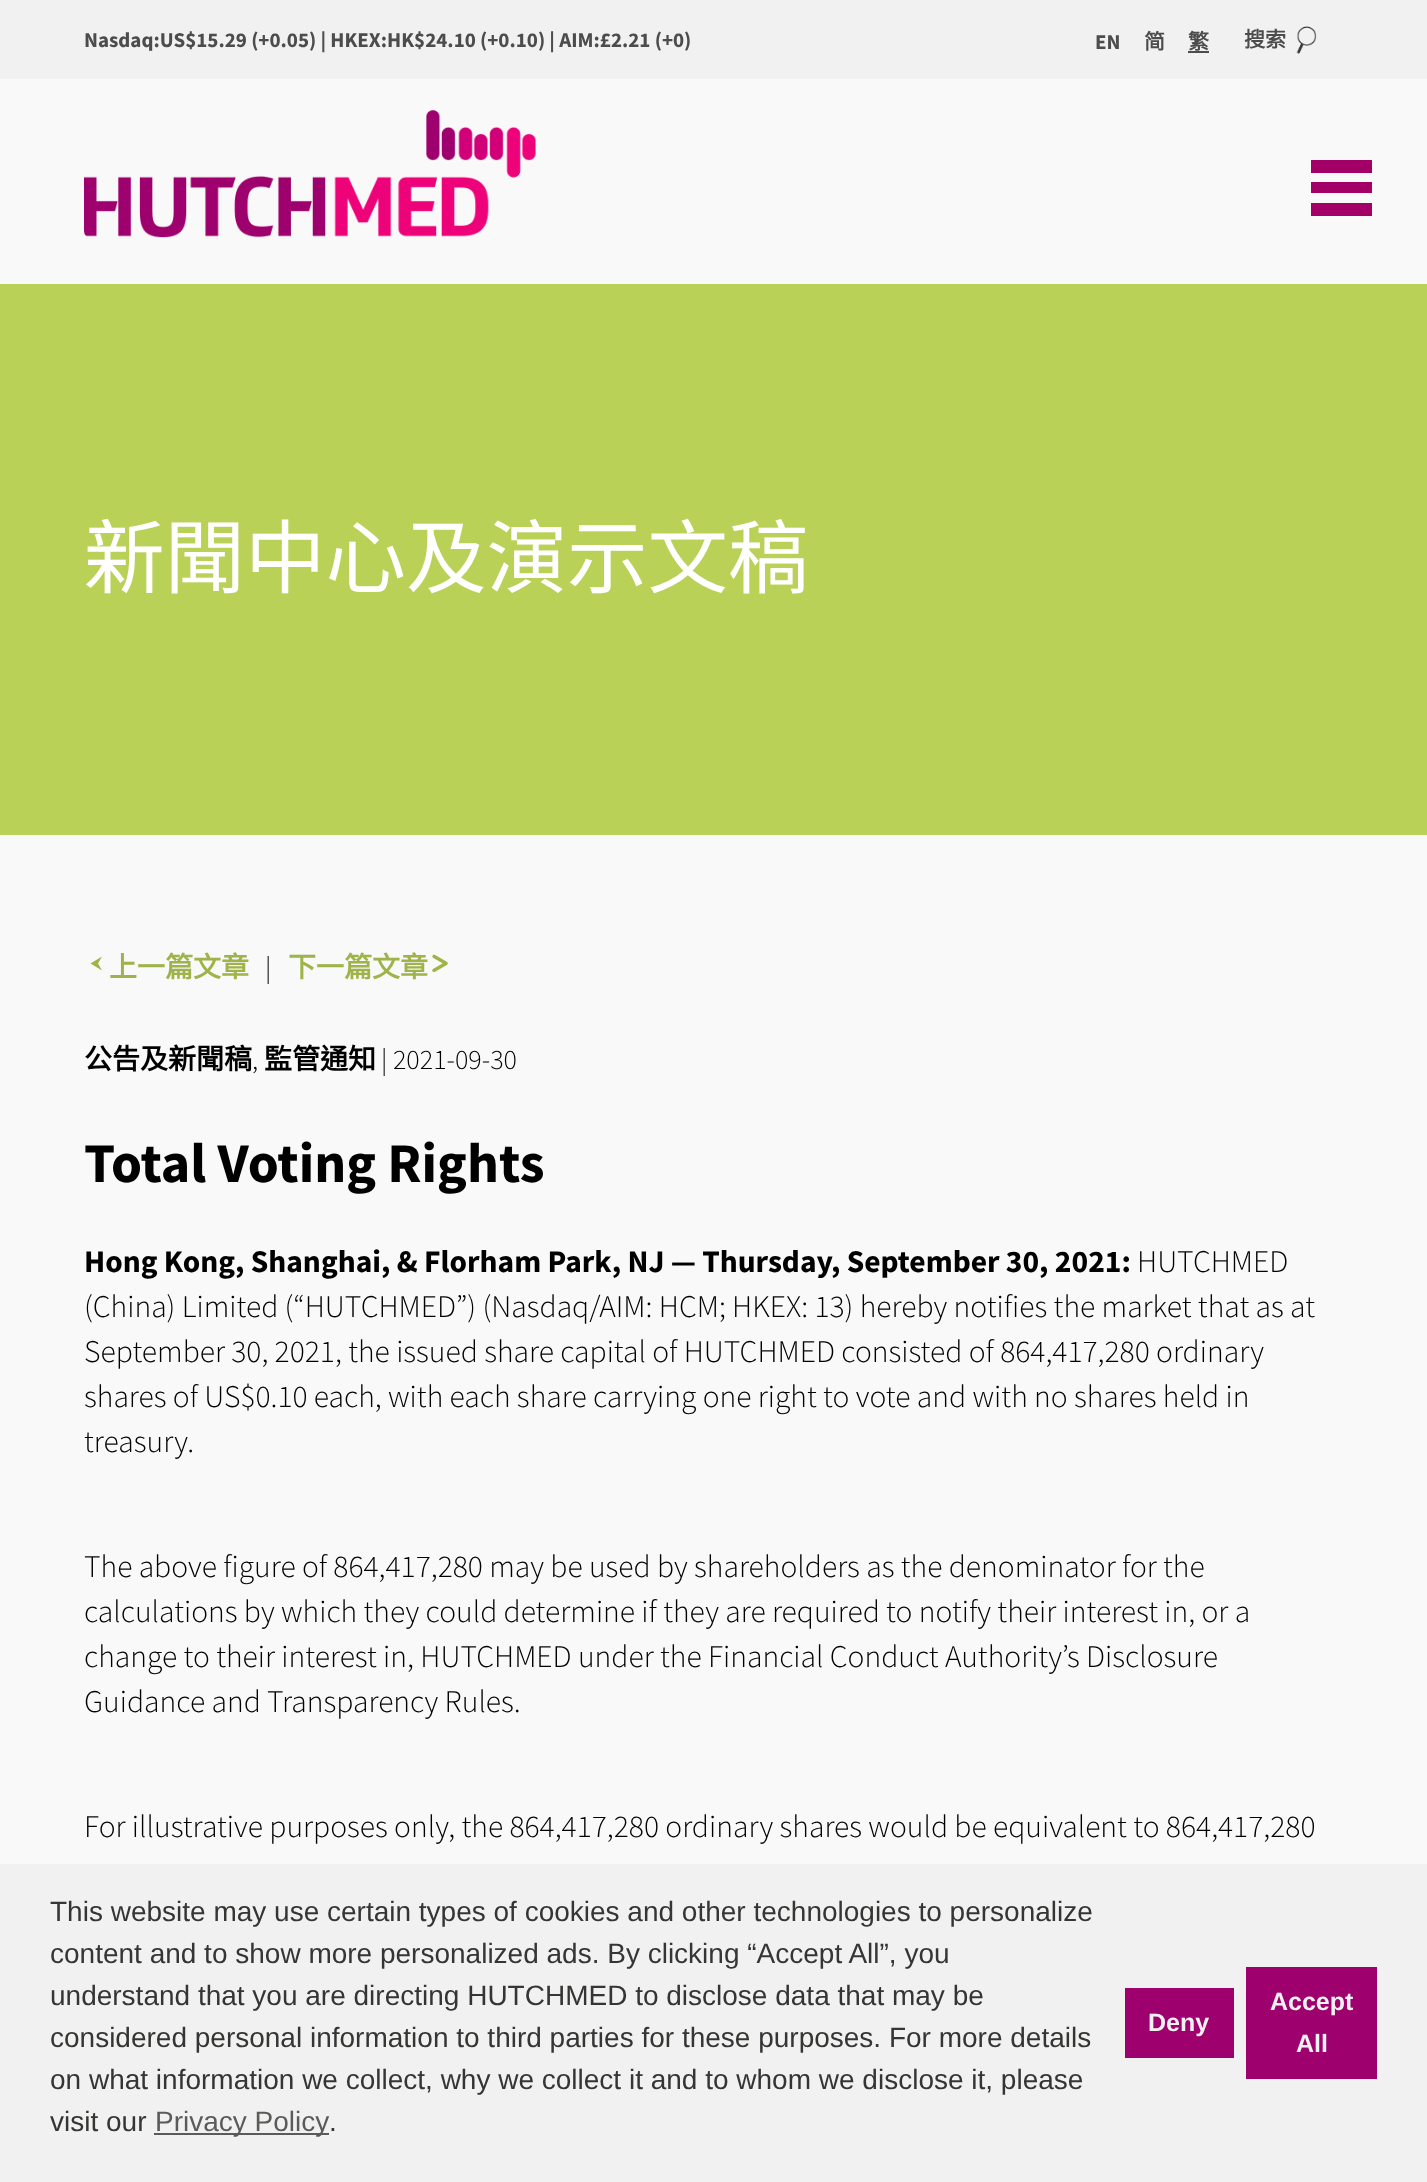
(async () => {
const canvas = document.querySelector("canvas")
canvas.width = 1427
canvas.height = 2182
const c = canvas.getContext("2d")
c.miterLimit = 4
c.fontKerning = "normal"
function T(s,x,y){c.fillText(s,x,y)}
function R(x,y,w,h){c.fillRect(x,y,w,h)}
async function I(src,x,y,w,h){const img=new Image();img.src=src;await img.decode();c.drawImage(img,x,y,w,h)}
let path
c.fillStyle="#f9f9f9"
R(0,0,1427,2182)
c.fillStyle="#f1f1f1"
R(0,0,1427,79)
c.font="bold 21px Source Sans Pro"
c.fillStyle="#4c4c4c"
T("Nasdaq:US$15.29 (+0.05) | HKEX:HK$24.10 (+0.10) | AIM:£2.21 (+0)",84,47)
T("EN",1095,49)
c.font="bold 21px Noto Sans CJK SC"
T("简",1144,49)
c.font="bold 21px Noto Sans CJK HK"
T("繁",1188,49)
R(1188,51,21,2)
await I("1.png",1296,26,21,28)
T("搜索",1244,47)
await I("2.png",84,110,452,128)
c.fillStyle="#a20067"
path = new Path2D("M1372 173h-61v-13h61zm0 9h-61v11h61zm0 21h-61v13h61z")
c.fill(path)
c.fillStyle="#bad157"
R(0,284,1427,551)
c.font="80.5px Noto Sans CJK HK"
c.fillStyle="#fff"
T("新聞中心及演示文稿",84,587)
c.fillStyle="#9fb34b"
path = new Path2D("M98 963.5l4 7l-11.5-7l11.5-7z")
c.fill(path)
c.font="bold 28px Noto Sans CJK HK"
T("上一篇文章",109,977)
c.font="300 28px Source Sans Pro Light"
c.fillStyle="#000"
T("|",265,977)
c.font="bold 28px Noto Sans CJK HK"
c.fillStyle="#9fb34b"
T("下一篇文章",288,977)
await I("3.png",432,954,16,19)
c.fillStyle="#000"
T("公告及新聞稿",84,1069)
c.font="300 28px Source Sans Pro Light"
T(",",252,1069)
c.font="bold 28px Noto Sans CJK HK"
T("監管通知",264,1069)
c.font="300 28px Source Sans Pro Light"
T("| 2021-09-30",381,1069)
c.font="bold 56px Source Sans Pro"
T("Total Voting Rights",84,1182)
c.font="bold 31.5px Source Sans Pro"
T("Hong Kong, Shanghai, & Florham Park, NJ — Thursday, September 30, 2021:",84,1272)
c.font="300 31.5px Source Sans Pro Light"
T("HUTCHMED",1137,1272)
T("(China) Limited (“HUTCHMED”) (Nasdaq/AIM: HCM; HKEX: 13) hereby notifies the market that as at",84,1317)
T("September 30, 2021, the issued share capital of HUTCHMED consisted of 864,417,280 ordinary",84,1362)
T("shares of US$0.10 each, with each share carrying one right to vote and with no shares held in",84,1407)
T("treasury.",84,1452)
T("The above figure of 864,417,280 may be used by shareholders as the denominator for the",84,1577)
T("calculations by which they could determine if they are required to notify their interest in, or a",84,1622)
T("change to their interest in, HUTCHMED under the Financial Conduct Authority’s Disclosure",84,1667)
T("Guidance and Transparency Rules.",84,1712)
T("For illustrative purposes only, the 864,417,280 ordinary shares would be equivalent to 864,417,280",84,1837)
c.fillStyle="#f1f1f1"
R(0,1864,1427,318)
c.font="28px Liberation Sans"
c.fillStyle="#353534"
T("This website may use certain types of cookies and other technologies to personalize",50,1921)
T("content and to show more personalized ads. By clicking “Accept All”, you",50,1963)
T("understand that you are directing HUTCHMED to disclose data that may be",50,2005)
T("considered personal information to third parties for these purposes. For more details",50,2047)
T("on what information we collect, why we collect it and to whom we disclose it, please",50,2089)
T("visit our",50,2131)
c.fillStyle="#5b5b5a"
R(154,2133,175,2)
T("Privacy Policy",155,2131)
c.fillStyle="#353534"
T(".",329,2131)
c.fillStyle="#9e006e"
R(1125,1988,109,70)
c.font="bold 25px Liberation Sans"
c.fillStyle="#f1f1f1"
T("Deny",1148,2031)
c.fillStyle="#9e006e"
R(1246,1967,131,112)
c.fillStyle="#f1f1f1"
T("Accept",1270,2010)
T("All",1296,2052)
})()
